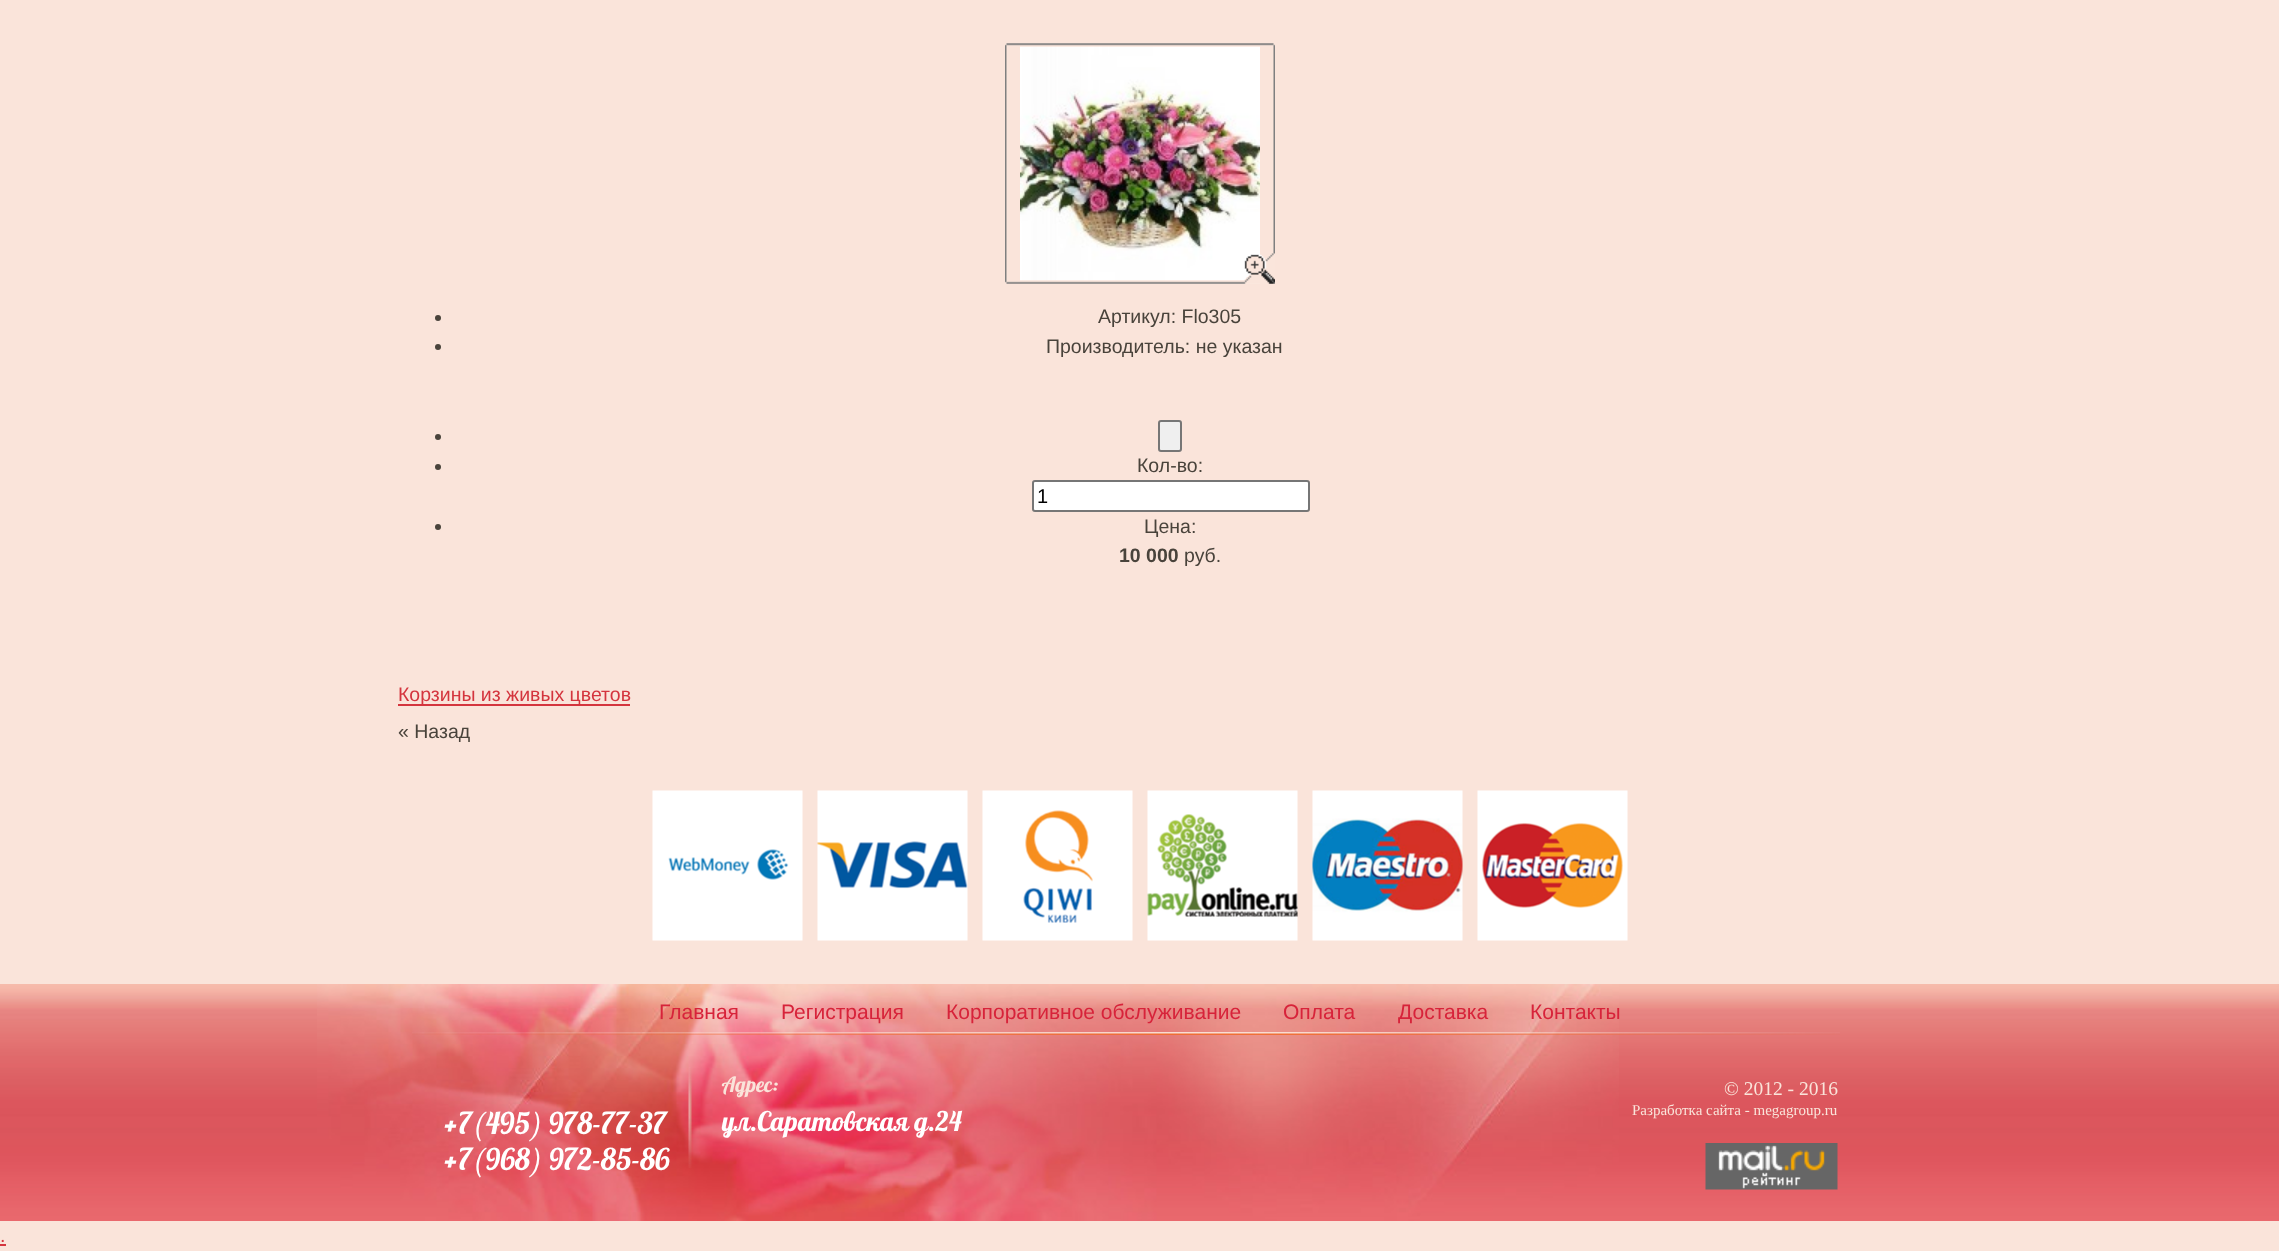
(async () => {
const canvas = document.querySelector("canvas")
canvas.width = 2279
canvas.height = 1251
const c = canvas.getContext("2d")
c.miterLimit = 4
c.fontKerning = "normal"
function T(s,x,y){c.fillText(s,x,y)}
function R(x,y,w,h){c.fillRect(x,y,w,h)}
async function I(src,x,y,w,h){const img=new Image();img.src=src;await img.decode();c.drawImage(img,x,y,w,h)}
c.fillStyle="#fae4da"
R(0,0,2279,1251)
await I("1.png",1005,43,270,241)
await I("2.png",1006,43,269,241)
c.fillStyle="#49433b"
c.beginPath()
c.arc(438,318,3,0,7)
c.fill()
c.font="19.5px Liberation Sans"
T("Артикул: Flo305",1098,323)
c.beginPath()
c.arc(438,347,3,0,7)
c.fill()
T("Производитель: не указан",1046,353)
c.beginPath()
c.arc(438,437,3,0,7)
c.fill()
c.fillStyle="#efefef"
c.beginPath()
c.roundRect(1159,421,22,30,2)
c.fill()
c.strokeStyle="#767676"
c.lineWidth=2
c.stroke()
c.fillStyle="#49433b"
c.beginPath()
c.arc(438,467,3,0,7)
c.fill()
T("Кол-во:",1137,472)
c.fillStyle="#fff"
c.beginPath()
c.roundRect(1033,481,276,30,2)
c.fill()
c.stroke()
c.font="20px Liberation Sans"
c.fillStyle="#000"
T("1",1037,503)
c.fillStyle="#49433b"
c.beginPath()
c.arc(438,527,3,0,7)
c.fill()
c.font="19.5px Liberation Sans"
T("Цена:",1144,533)
c.font="bold 19.5px Liberation Sans"
T("10 000",1119,562)
c.font="19.5px Liberation Sans"
T("руб.",1184,562)
c.fillStyle="#d4353e"
R(398,704,232,2)
T("Корзины из живых цветов",398,701)
c.fillStyle="#49433b"
T("« Назад",398,738)
await I("3.png",652,790,151,151)
await I("4.png",817,790,151,151)
await I("5.png",982,790,151,151)
await I("6.png",1147,790,151,151)
await I("7.png",1312,790,151,151)
await I("8.png",1477,790,151,151)
await I("9.png",0,984,2279,237)
await I("10.png",317,984,1302,237)
await I("11.png",412,1032,1428,3)
c.font="21px Liberation Sans"
c.fillStyle="#d7233a"
T("Главная",659,1019)
T("Регистрация",781,1019)
T("Корпоративное обслуживание",946,1019)
T("Оплата",1283,1019)
T("Доставка",1398,1019)
T("Контакты",1530,1019)
await I("12.png",688,1067,4,101)
c.font="21px 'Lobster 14'"
c.fillStyle="#fae4da"
T("Адрес:",722,1092)
c.font="27px 'Lobster 14'"
c.fillStyle="#fff"
T("ул.Саратовская д.24",722,1131)
c.font="19.5px Liberation Serif"
c.fillStyle="#fae4da"
T("© 2012 - 2016",1724,1095)
c.font="30px 'Lobster 14'"
c.fillStyle="#fff"
T("+7(495) 978-77-37",443,1134)
T("+7(968) 972-85-86",443,1170)
c.font="15px Liberation Serif"
c.fillStyle="#fae4da"
T("Разработка сайта - megagroup.ru",1632,1115)
await I("13.png",1705,1143,133,47)
c.font="19.5px Liberation Sans"
c.fillStyle="#d4353e"
T(".",0,1242)
R(0,1244,6,2)
})()
